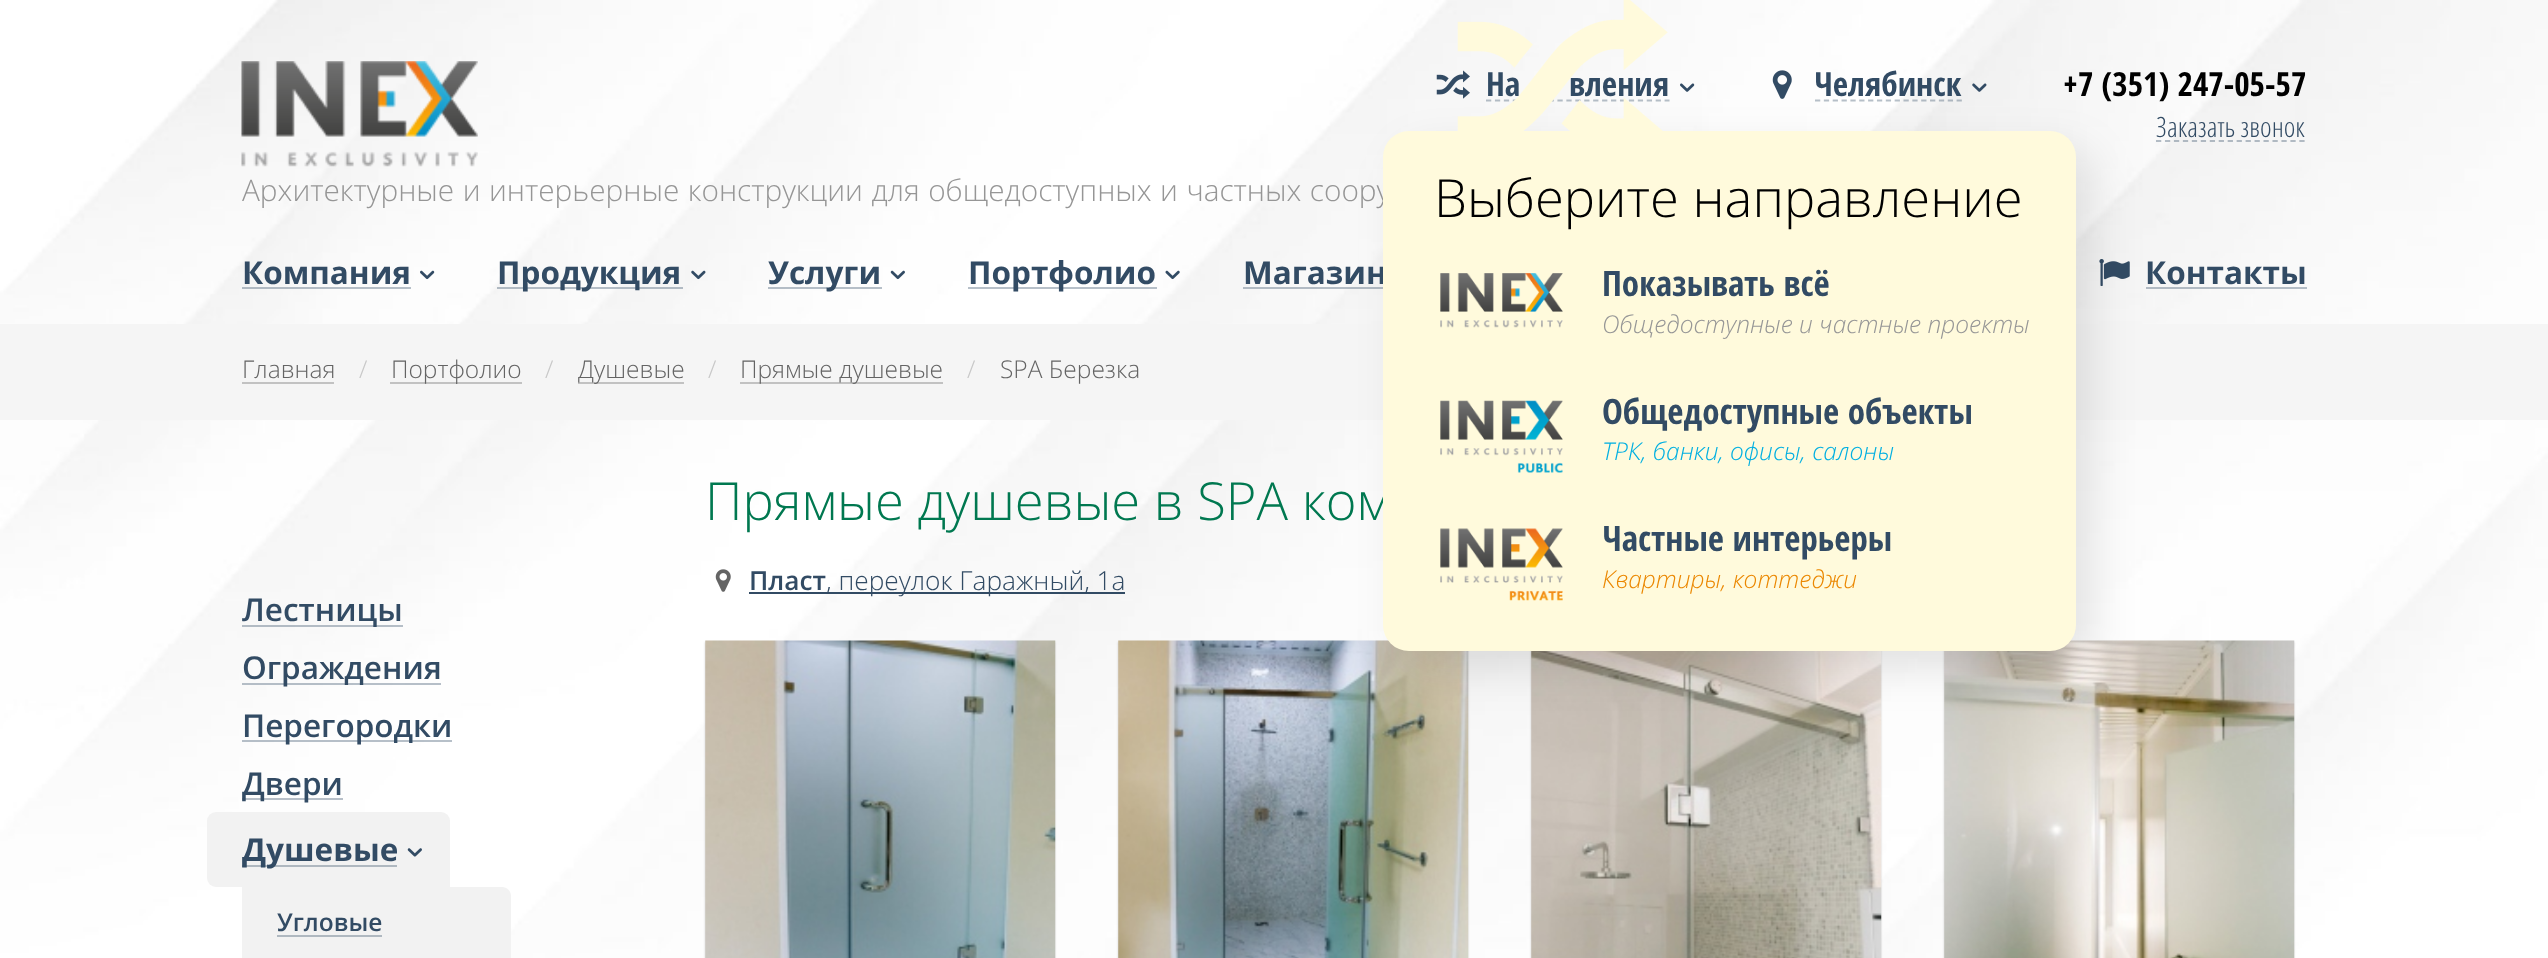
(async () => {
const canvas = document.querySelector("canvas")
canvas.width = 2548
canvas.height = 958
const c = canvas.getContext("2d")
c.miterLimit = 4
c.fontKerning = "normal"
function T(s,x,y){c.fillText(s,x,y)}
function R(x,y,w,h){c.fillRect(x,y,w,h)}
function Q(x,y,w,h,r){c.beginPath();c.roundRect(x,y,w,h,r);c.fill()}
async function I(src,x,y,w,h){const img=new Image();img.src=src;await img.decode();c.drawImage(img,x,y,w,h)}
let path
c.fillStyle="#fff"
R(0,0,2548,958)
await I("1.png",0,0,2548,958)
c.wordSpacing="0.75px"
c.font="300 29.75px Open Sans"
c.fillStyle="#969696"
T("Архитектурные и интерьерные конструкции для общедоступных и частных соору",242,201)
await I("2.png",241,61,237,106)
await I("3.png",1772,70,20,29)
path = new Path2D("M1815 100.5h147")
c.strokeStyle="#324b6459"
c.lineWidth=1.8
c.setLineDash([5.25,3.6])
c.stroke(path)
c.wordSpacing="0px"
c.font="bold 33.25px Open Sans Condensed"
c.fillStyle="#324b64"
T("Челябинск",1814,96)
await I("4.png",1972,83,15,9)
c.fillStyle="#000"
T("+7 (351) 247-05-57",2063,96)
path = new Path2D("M2156 141h149")
c.setLineDash([5.25,3.71])
c.stroke(path)
c.font="300 28px Open Sans Condensed"
c.fillStyle="#324b64"
T("Заказать звонок",2156,137)
await I("5.png",1436,70,34,29)
path = new Path2D("M1486 100.5h183.5")
c.setLineDash([5.25,3.68])
c.stroke(path)
c.font="bold 33.25px Open Sans Condensed"
T("На",1486,96)
T("вления",1569,96)
await I("6.png",1680,83,15,9)
c.fillStyle="#324b6459"
R(1243,287,145,2)
await I("15.png",2099,259,31,27)
R(2146,287,161,2)
c.fillStyle="#f5f5f5"
R(0,324,2548,96)
c.fillStyle="#00000026"
c.filter="blur(1px)"
c.beginPath()
c.rect(1118,642,350,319)
c.fill()
c.filter="none"
await I("18.png",1118,640,351,318)
c.filter="blur(1px)"
c.beginPath()
c.rect(1531,642,350,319)
c.fill()
c.filter="none"
await I("19.png",1531,651,351,307)
c.filter="blur(1px)"
c.beginPath()
c.rect(1944,642,350,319)
c.fill()
c.filter="none"
await I("20.png",1944,640,351,318)
c.fillStyle="#0000001a"
c.filter="blur(22px)"
c.beginPath()
c.roundRect(1400,149,693,520,26)
c.fill()
c.filter="none"
c.font="bold 31.5px Open Sans"
c.fillStyle="#324b64"
T("Магазин",1243,284)
c.font="300 52.5px Open Sans"
c.fillStyle="#007850"
T("Прямые душевые в SPA ком",705,520)
c.fillStyle="#fffadc"
Q(1383,131,693,520,26)
await I("7.png",1457,0,211,131)
c.fillStyle="#000"
T("Выберите направление",1434,217)
await I("8.png",1440,273,123,55)
c.font="bold 35px Open Sans Condensed"
c.fillStyle="#324b64"
T("Показывать всё",1602,296)
c.font="italic 300 24.5px Open Sans"
c.fillStyle="#969696"
T("Общедоступные и частные проекты",1602,333)
await I("9.png",1440,400,123,73)
c.font="bold 35px Open Sans Condensed"
c.fillStyle="#324b64"
T("Общедоступные объекты",1602,424)
c.font="italic 300 24.5px Open Sans"
c.fillStyle="#00afe1"
T("ТРК, банки, офисы, салоны",1602,460)
await I("10.png",1440,528,123,73)
c.font="bold 35px Open Sans Condensed"
c.fillStyle="#324b64"
T("Частные интерьеры",1602,551)
c.font="italic 300 24.5px Open Sans"
c.fillStyle="#eb8700"
T("Квартиры, коттеджи",1602,588)
c.fillStyle="#324b6459"
R(242,287,169,2)
c.font="bold 31.5px Open Sans"
c.fillStyle="#324b64"
T("Компания",242,284)
await I("11.png",420,270,15,10)
c.fillStyle="#324b6459"
R(497,287,186,2)
c.fillStyle="#324b64"
T("Продукция",497,284)
await I("12.png",691,270,15,10)
c.fillStyle="#324b6459"
R(768,287,114,2)
c.fillStyle="#324b64"
T("Услуги",768,284)
await I("13.png",890,270,15,10)
c.fillStyle="#324b6459"
R(968,287,189,2)
c.fillStyle="#324b64"
T("Портфолио",968,284)
await I("14.png",1165,270,15,10)
T("Контакты",2145,284)
c.fillStyle="#c2c2c2"
R(242,382,92,2)
c.font="300 24.5px Open Sans"
c.fillStyle="#646464"
T("Главная",242,378)
c.fillStyle="#c8c8c8"
T("/",359,378)
c.fillStyle="#c2c2c2"
R(390,382,132,2)
c.fillStyle="#646464"
T("Портфолио",391,378)
c.fillStyle="#c8c8c8"
T("/",545,378)
c.fillStyle="#c2c2c2"
R(578,382,106,2)
c.fillStyle="#646464"
T("Душевые",578,378)
c.fillStyle="#c8c8c8"
T("/",708,378)
c.fillStyle="#c2c2c2"
R(740,382,203,2)
c.fillStyle="#646464"
T("Прямые душевые",740,378)
c.fillStyle="#c8c8c8"
T("/",967,378)
c.fillStyle="#646464"
T("SPA Березка",1000,378)
await I("16.png",715,569,16,23)
c.font="600 26.25px Open Sans"
c.fillStyle="#324b64"
T("Пласт",749,590)
R(749,592,376,2)
c.font="300 26.25px Open Sans"
T(", переулок Гаражный, 1а",826,590)
c.fillStyle="#00000026"
c.filter="blur(1px)"
c.beginPath()
c.rect(705,642,350,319)
c.fill()
c.filter="none"
await I("17.png",705,640,351,318)
c.fillStyle="#324b6459"
R(242,625,161,2)
c.font="600 31.5px Open Sans"
c.fillStyle="#324b64"
T("Лестницы",242,621)
c.fillStyle="#324b6459"
R(242,683,199,2)
c.fillStyle="#324b64"
T("Ограждения",242,679)
c.fillStyle="#324b6459"
R(242,740,210,2)
c.fillStyle="#324b64"
T("Перегородки",242,737)
c.fillStyle="#b7bfc8"
R(242,798,101,2)
c.fillStyle="#324b64"
T("Двери",242,795)
c.fillStyle="#f2f2f2"
c.beginPath()
c.roundRect(207,812,243,75,[9,9,0,9])
c.fill()
c.fillStyle="#afb8c0"
R(242,865,155,2)
c.font="bold 31.5px Open Sans"
c.fillStyle="#324b64"
T("Душевые",242,861)
await I("21.png",407,848,15,9)
c.fillStyle="#f2f2f2"
path = new Path2D("M242 887h260c5 0 9 4 9 9v62c0 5-4 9-9 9h-251c-5 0-9-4-9-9z")
c.fill(path)
c.fillStyle="#afb8c0"
R(277,935,105,2)
c.font="600 24.5px Open Sans"
c.fillStyle="#324b64"
T("Угловые",277,931)
})()
